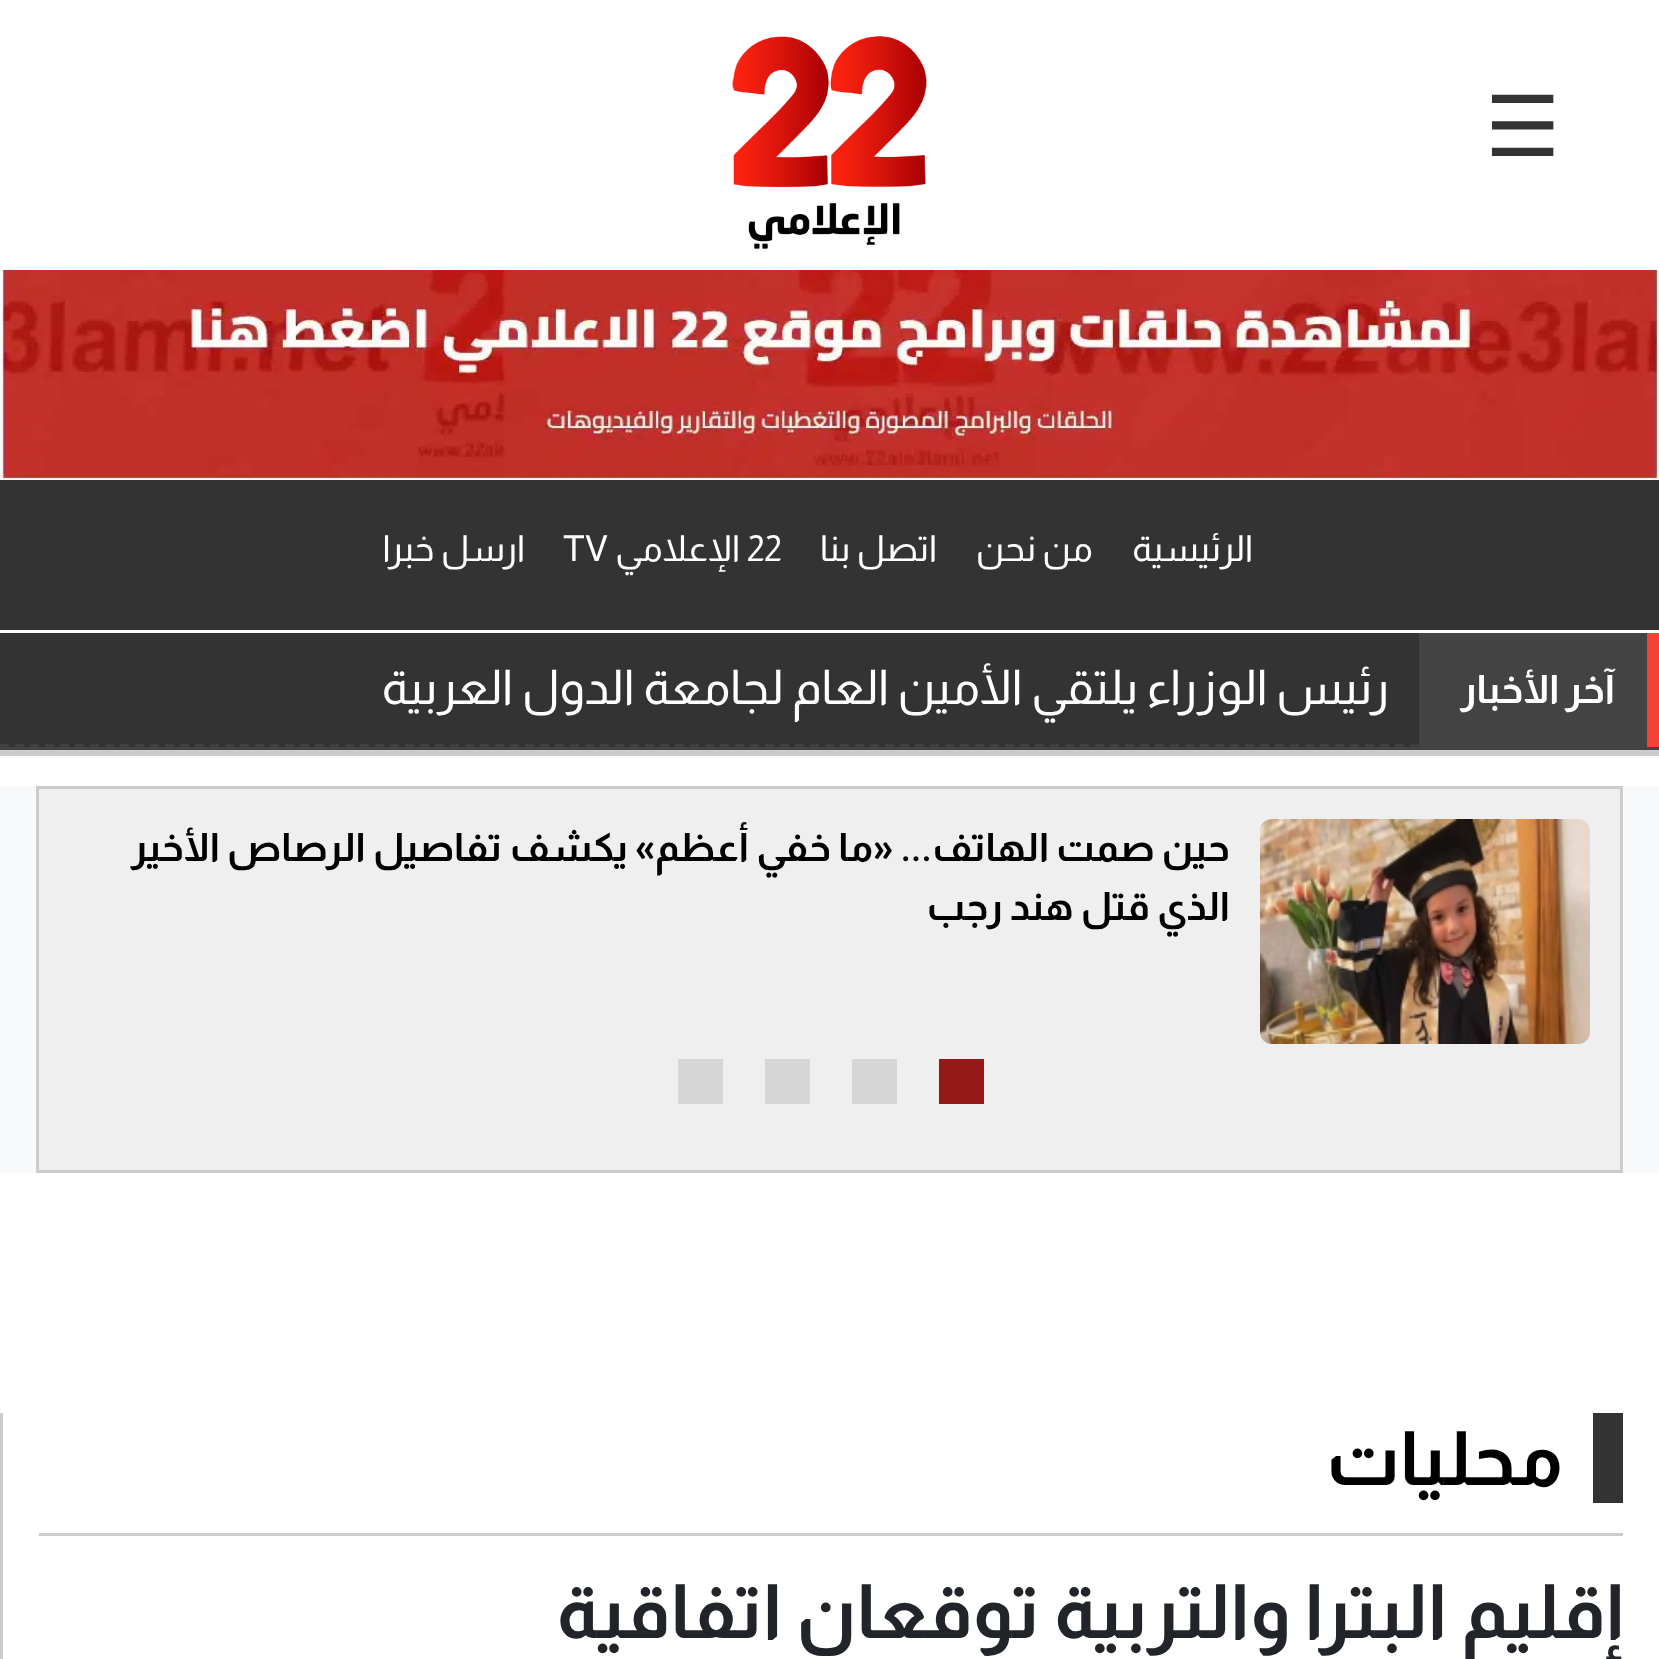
(async () => {
const canvas = document.querySelector("canvas")
canvas.width = 1659
canvas.height = 1659
const c = canvas.getContext("2d")
c.miterLimit = 4
c.fontKerning = "normal"
function T(s,x,y){c.fillText(s,x,y)}
function R(x,y,w,h){c.fillRect(x,y,w,h)}
async function I(src,x,y,w,h){const img=new Image();img.src=src;await img.decode();c.drawImage(img,x,y,w,h)}
let path
c.fillStyle="#fff"
R(0,0,1659,1659)
c.fillStyle="#ccc"
R(0,750,1659,6)
c.font="84px DejaVu Sans"
c.fillStyle="#333"
T("☰",1485,156)
await I("1.png",732,36,195,213)
await I("2.png",0,270,1659,210)
R(0,480,1659,150)
c.direction="rtl"
c.font="36px Almarai"
c.fillStyle="#fff"
T("الرئيسية",1253,561)
T("من نحن",1093,561)
T("اتصل بنا",937,561)
c.direction="ltr"
T("22",747,561)
c.direction="rtl"
T("الإعلامي",740,561)
c.direction="ltr"
T("TV",563,561)
c.direction="rtl"
T("ارسل خبرا",525,561)
c.fillStyle="#333"
R(0,633,1419,114)
c.fillStyle="#434343"
R(0,747,1659,3)
R(1419,633,228,114)
c.fillStyle="#f44336"
R(1647,633,12,114)
c.letterSpacing="0.6px"
c.wordSpacing="-2px"
c.font="bold 39px Almarai"
c.fillStyle="#fff"
T("آخر الأخبار",1615,703)
path = new Path2D("M0 745.5h1419")
c.strokeStyle="#3f3f3f"
c.lineWidth=3
c.setLineDash([9,6])
c.stroke(path)
c.letterSpacing="0px"
c.wordSpacing="0px"
c.font="48px Almarai"
T("رئيس الوزراء يلتقي الأمين العام لجامعة الدول العربية",1389,704)
c.fillStyle="#f8f9fa"
R(0,786,1659,387)
c.fillStyle="#efefef"
c.beginPath()
c.rect(37.5,787.5,1584,384)
c.fill()
c.strokeStyle="#ccc"
c.setLineDash([])
c.stroke()
await I("3.png",1260,819,330,225)
c.font="bold 39px Almarai"
c.fillStyle="#000"
T("حين صمت الهاتف... «ما خفي أعظم» يكشف تفاصيل الرصاص الأخير",1230,861)
T("الذي قتل هند رجب",1230,920)
c.fillStyle="#941917"
R(939,1059,45,45)
c.fillStyle="#d6d6d6"
R(852,1059,45,45)
R(765,1059,45,45)
R(678,1059,45,45)
c.fillStyle="#ccc"
R(0,1413,3,246)
R(39,1533,1584,3)
c.fillStyle="#333"
R(1593,1413,30,90)
c.font="bold 75px Almarai"
c.fillStyle="#000"
T("محليات",1563,1485)
c.fillStyle="#212529"
T("إقليم البترا والتربية توقعان اتفاقية",1623,1638)
})()
